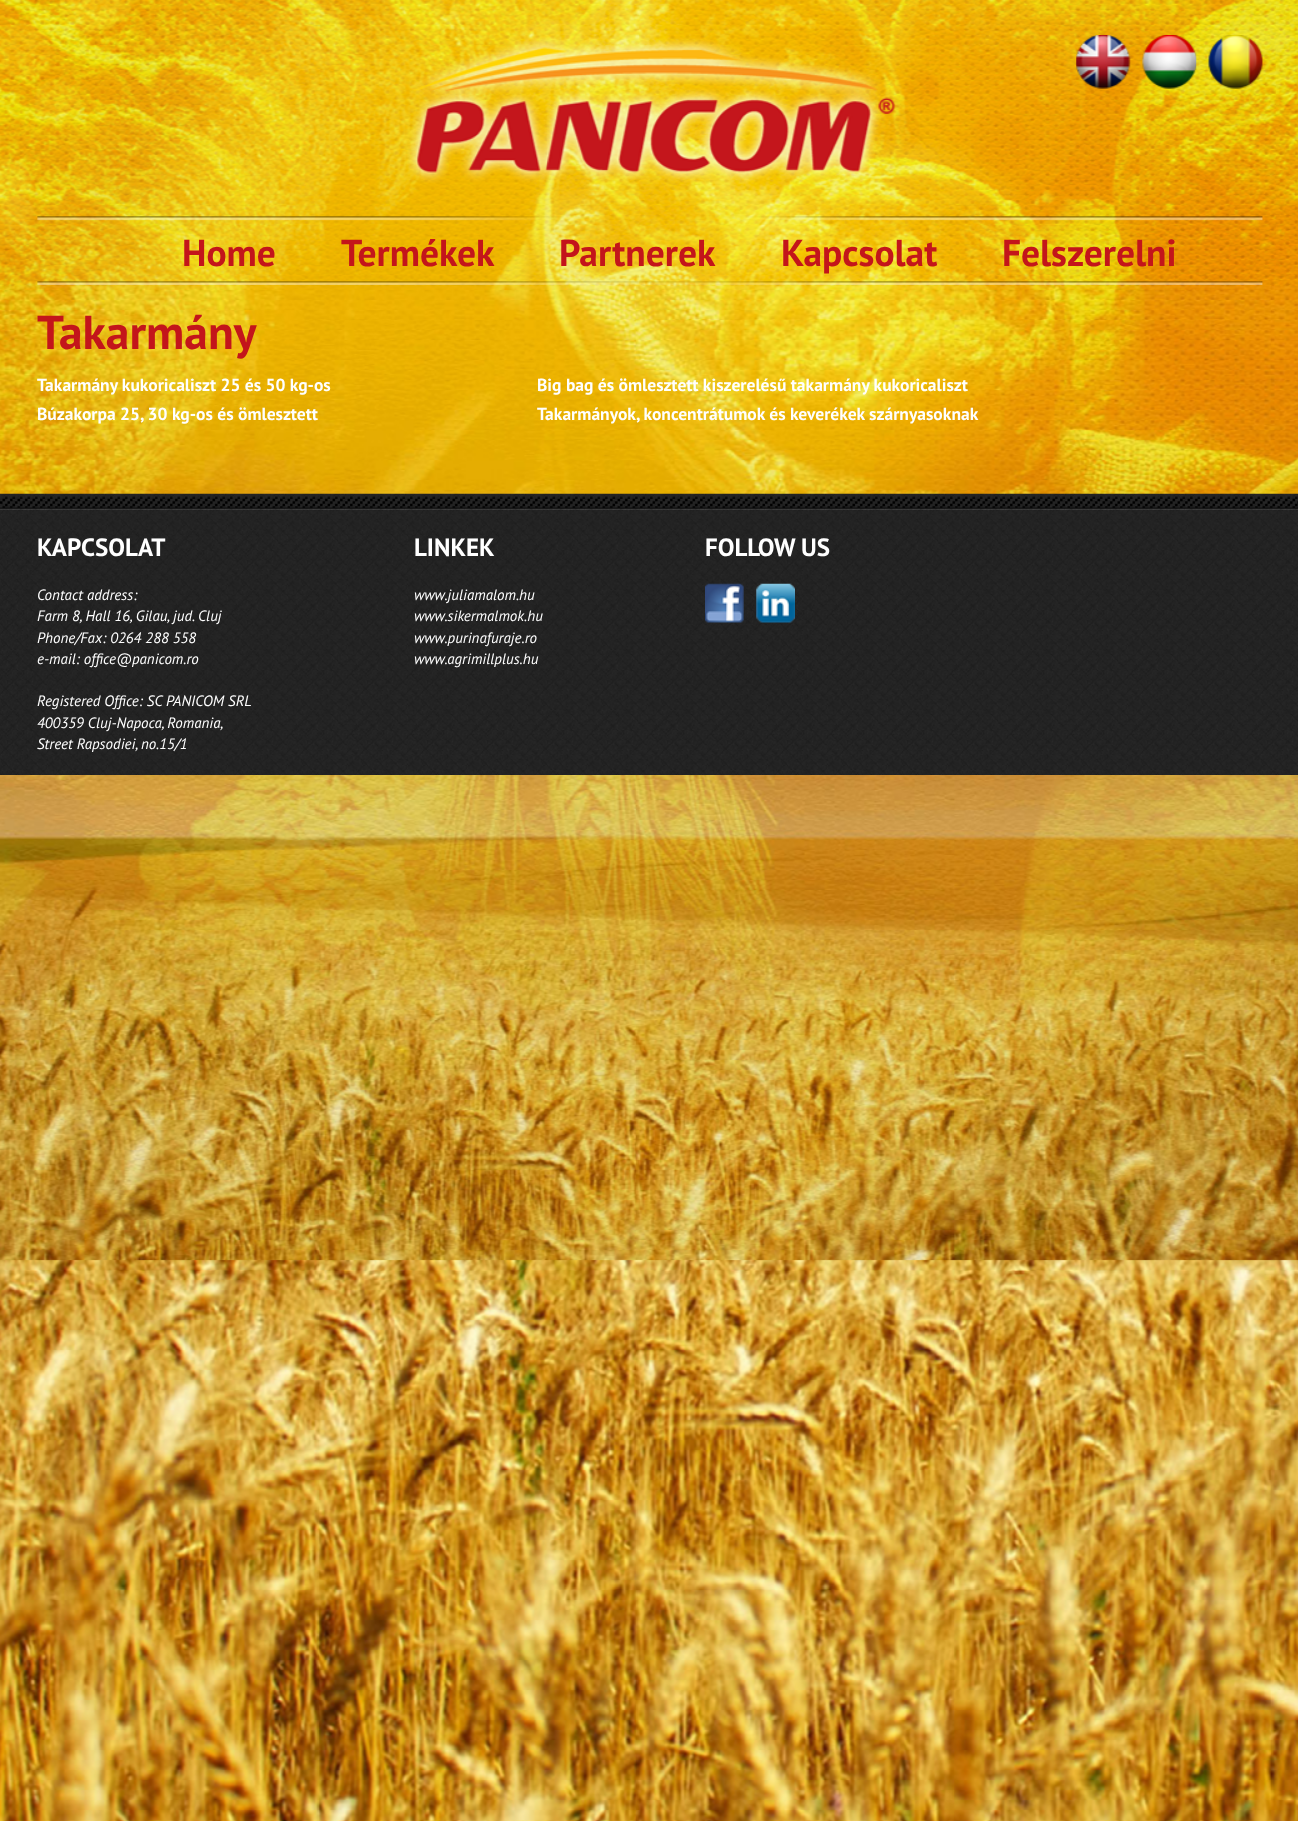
(async () => {
const canvas = document.querySelector("canvas")
canvas.width = 1298
canvas.height = 1821
const c = canvas.getContext("2d")
c.miterLimit = 4
c.fontKerning = "normal"
function T(s,x,y){c.fillText(s,x,y)}
function R(x,y,w,h){c.fillRect(x,y,w,h)}
async function I(src,x,y,w,h){const img=new Image();img.src=src;await img.decode();c.drawImage(img,x,y,w,h)}
c.fillStyle="#fff"
R(0,0,1298,1821)
await I("1.png",0,286,1298,1535)
await I("2.png",0,0,1298,286)
await I("3.png",407,37,489,146)
await I("4.png",1076,35,55,54)
await I("5.png",1142,35,55,54)
await I("6.png",1208,35,55,54)
await I("7.png",37,216,1226,69)
c.font="bold 37.5px PT Sans"
c.fillStyle="#c3151b"
T("Home",182,266)
T("Termékek",341,266)
T("Partnerek",559,266)
T("Kapcsolat",781,266)
T("Felszerelni",1002,266)
c.font="bold 47.5px PT Sans"
T("Takarmány",37,349)
c.font="bold 17.55px PT Sans"
c.fillStyle="#fff"
T("Takarmány kukoricaliszt 25 és 50 kg-os",37,391)
T("Big bag és ömlesztett kiszerelésű takarmány kukoricaliszt",537,391)
T("Búzakorpa 25, 30 kg-os és ömlesztett",37,420)
T("Takarmányok, koncentrátumok és keverékek szárnyasoknak",537,420)
await I("8.png",0,493,1298,17)
await I("9.png",0,510,1298,265)
c.font="bold 25px PT Sans"
T("KAPCSOLAT",37,556)
c.font="italic 15px PT Sans"
T("Contact address:",37,600)
T("Farm 8, Hall 16, Gilau, jud. Cluj",37,621)
T("Phone/Fax: 0264 288 558",37,643)
T("e-mail: office@panicom.ro",37,664)
T("Registered Office: SC PANICOM SRL",37,706)
T("400359 Cluj-Napoca, Romania,",37,728)
T("Street Rapsodiei, no.15/1",37,749)
c.font="bold 25px PT Sans"
T("LINKEK",414,556)
c.font="italic 15px PT Sans"
T("www.juliamalom.hu",414,600)
T("www.sikermalmok.hu",414,621)
T("www.purinafuraje.ro",414,643)
T("www.agrimillplus.hu",414,664)
c.font="bold 25px PT Sans"
T("FOLLOW US",705,556)
await I("10.png",705,583,39,40)
await I("11.png",756,583,39,40)
})()
